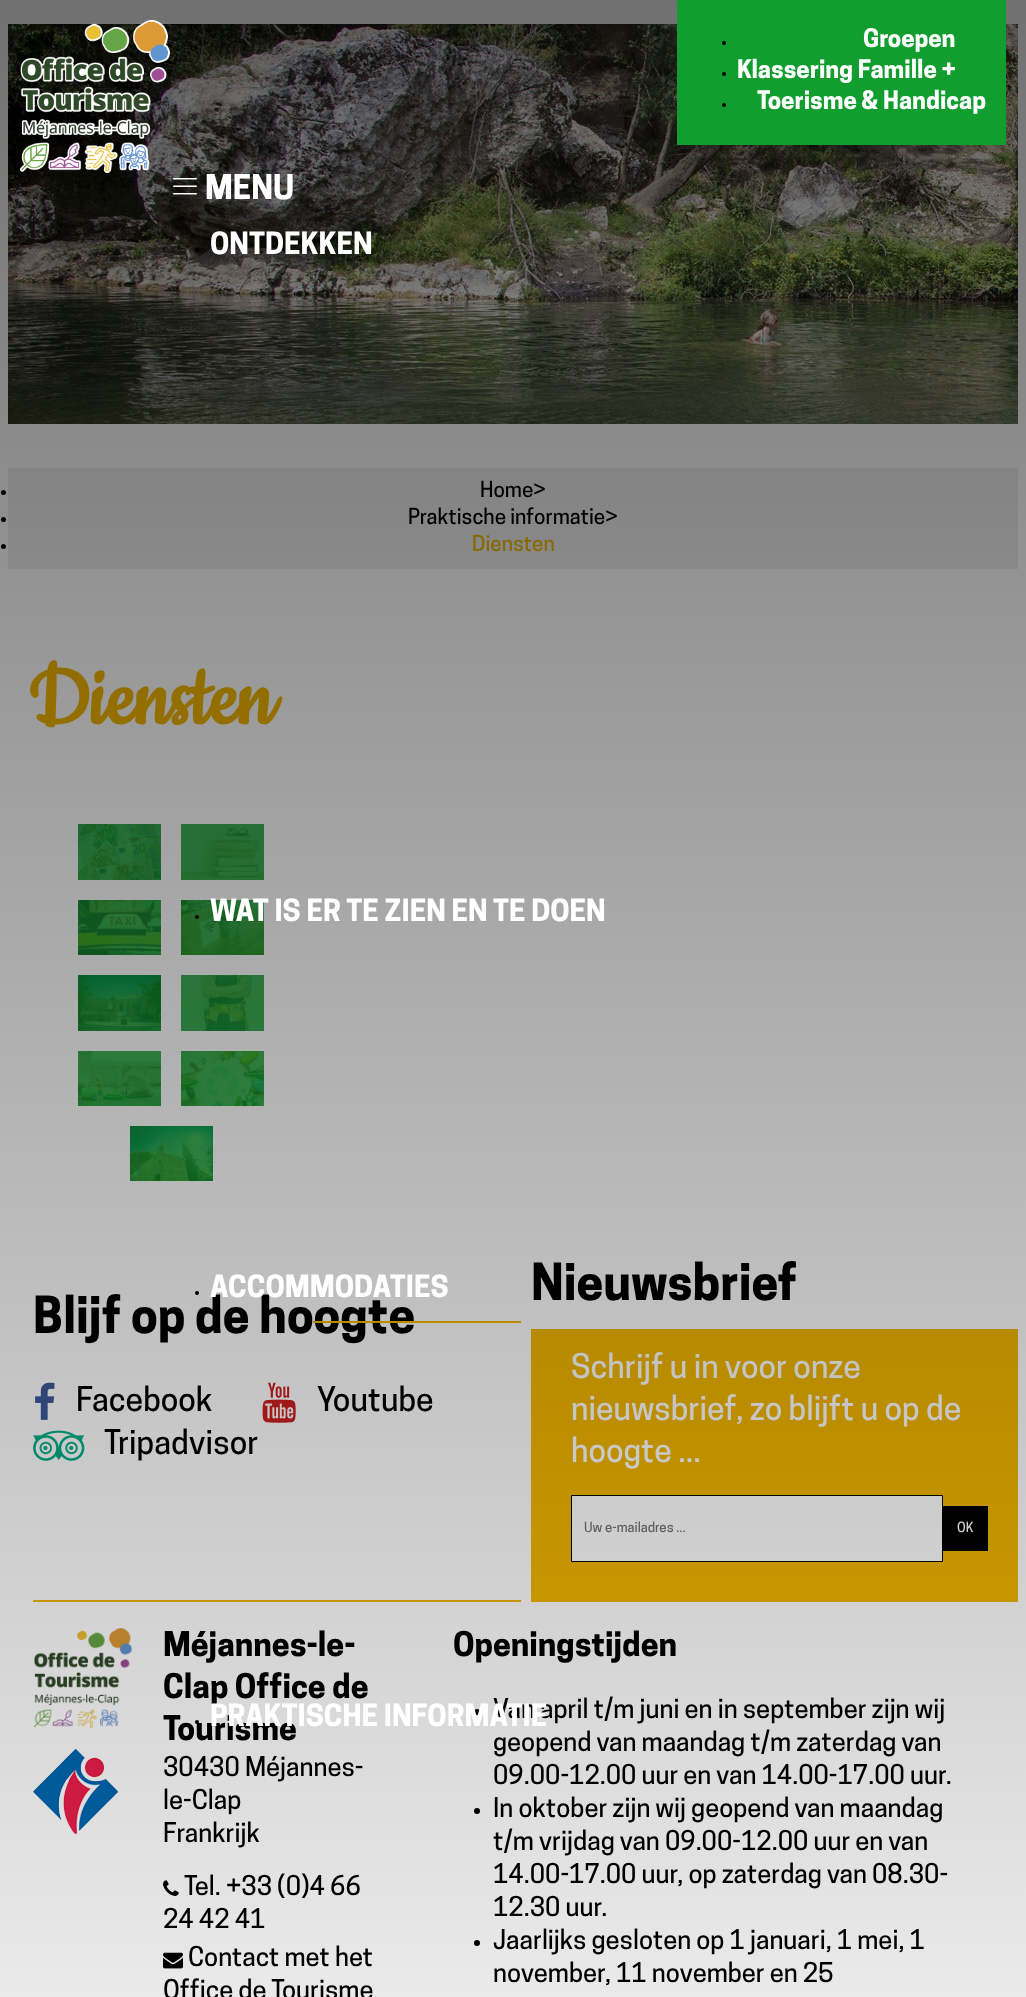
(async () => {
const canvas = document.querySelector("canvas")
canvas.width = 1026
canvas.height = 1997
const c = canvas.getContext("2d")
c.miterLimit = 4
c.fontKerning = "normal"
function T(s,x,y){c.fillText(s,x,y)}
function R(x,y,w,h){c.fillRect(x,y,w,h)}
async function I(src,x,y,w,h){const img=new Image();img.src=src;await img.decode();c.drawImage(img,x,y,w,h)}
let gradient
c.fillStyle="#fff"
R(0,0,1026,1997)
await I("1.png",8,24,1010,400)
c.fillStyle="#eee"
R(8,468,1010,101)
c.fillStyle="#000"
c.beginPath()
c.arc(3.5,492.5,2.5,0,7)
c.fill()
c.font="500 20.75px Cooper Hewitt"
T("Home>",480,497)
c.beginPath()
c.arc(3.5,519.5,2.5,0,7)
c.fill()
T("Praktische informatie>",408,524)
c.beginPath()
c.arc(3.5,546.5,2.5,0,7)
c.fill()
c.fillStyle="#f2b600"
T("Diensten",472,551)
c.font="bold 96px Cookie"
T("Diensten",28,724)
await I("4.png",78,824,83,56)
await I("5.png",181,824,83,56)
await I("6.png",78,900,83,55)
await I("7.png",181,900,83,55)
await I("8.png",78,975,83,56)
await I("9.png",181,975,83,56)
await I("10.png",78,1051,83,55)
await I("11.png",181,1051,83,55)
await I("12.png",130,1126,83,55)
R(33,1600,488,2)
c.font="bold 48px Cooper Hewitt"
c.fillStyle="#000"
T("Blijf op de hoogte",33,1333)
c.fillStyle="#f2b600"
R(313,1321,208,2)
await I("13.png",35,1382,20,38)
c.font="500 32px Cooper Hewitt"
c.fillStyle="#000"
T("Facebook",76,1411)
await I("14.png",262,1382,34,41)
T("Youtube",317,1411)
await I("15.png",33,1430,52,31)
T("Tripadvisor",104,1454)
c.fillStyle="#f2b600"
R(531,1329,487,273)
c.font="bold 48px Cooper Hewitt"
c.fillStyle="#000"
T("Nieuwsbrief",531,1300)
c.font="500 32px Cooper Hewitt"
c.fillStyle="#fff"
T("Schrijf u in voor onze",571,1378)
T("nieuwsbrief, zo blijft u op de",571,1420)
T("hoogte ...",571,1462)
c.beginPath()
c.rect(571.5,1495.5,371,66)
c.fill()
c.strokeStyle="#000"
c.stroke()
c.font="500 13.25px Cooper Hewitt"
c.fillStyle="#757575"
T("Uw e-mailadres ...",584,1532)
c.fillStyle="#000"
R(943,1506,45,45)
c.fillStyle="#fff"
T("OK",957,1532)
await I("16.png",34,1628,99,101)
await I("17.png",33,1749,85,86)
c.font="bold 32px Cooper Hewitt"
c.fillStyle="#000"
T("Méjannes-le-",163,1656)
T("Clap Office de",163,1698)
T("Tourisme",163,1740)
c.font="500 25.6px Cooper Hewitt"
T("30430 Méjannes-",163,1776)
T("le-Clap",163,1809)
T("Frankrijk",163,1842)
await I("18.png",163,1880,16,16)
T("Tel. +33 (0)4 66",184,1895)
T("24 42 41",163,1928)
await I("19.png",163,1952,20,17)
T("Contact met het",188,1966)
T("Office de Tourisme",163,1999)
c.font="bold 32px Cooper Hewitt"
T("Openingstijden",453,1656)
c.beginPath()
c.arc(477,1712,3,0,7)
c.fill()
c.font="500 25.6px Cooper Hewitt"
T("Van april t/m juni en in september zijn wij",493,1718)
T("geopend van maandag t/m zaterdag van",493,1751)
T("09.00-12.00 uur en van 14.00-17.00 uur.",493,1784)
c.beginPath()
c.arc(477,1811,3,0,7)
c.fill()
T("In oktober zijn wij geopend van maandag",493,1817)
T("t/m vrijdag van 09.00-12.00 uur en van",493,1850)
T("14.00-17.00 uur, op zaterdag van 08.30-",493,1883)
T("12.30 uur.",493,1916)
c.beginPath()
c.arc(477,1943,3,0,7)
c.fill()
T("Jaarlijks gesloten op 1 januari, 1 mei, 1",493,1949)
T("november, 11 november en 25",493,1982)
gradient = c.createLinearGradient(513,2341,513,0)
gradient.addColorStop(0,"#00000000")
gradient.addColorStop(1,"#0000008f")
c.fillStyle = gradient
R(0,0,1026,1997)
await I("2.png",20,20,150,153)
c.fillStyle="#119e2f"
R(677,0,329,145)
c.fillStyle="#000"
c.beginPath()
c.arc(724,43,2,0,7)
c.fill()
c.font="bold 24px Cooper Hewitt"
c.fillStyle="#fff"
T("Groepen",863,47)
c.fillStyle="#000"
c.beginPath()
c.arc(724,74,2,0,7)
c.fill()
c.fillStyle="#fff"
T("Klassering Famille +",737,78)
c.fillStyle="#000"
c.beginPath()
c.arc(724,105,2,0,7)
c.fill()
c.fillStyle="#fff"
T("Toerisme & Handicap",757,109)
await I("3.png",173,178,24,17)
c.font="bold 32px Cooper Hewitt"
T("MENU",205,199)
c.fillStyle="#000"
c.beginPath()
c.arc(197,250,2,0,7)
c.fill()
c.font="bold 28.75px Cooper Hewitt"
c.fillStyle="#fff"
T("ONTDEKKEN",210,254)
c.fillStyle="#000"
c.beginPath()
c.arc(197,917,2,0,7)
c.fill()
c.fillStyle="#fff"
T("WAT IS ER TE ZIEN EN TE DOEN",210,921)
c.fillStyle="#000"
c.beginPath()
c.arc(197,1293,2,0,7)
c.fill()
c.fillStyle="#fff"
T("ACCOMMODATIES",210,1297)
c.fillStyle="#000"
c.beginPath()
c.arc(197,1722,2,0,7)
c.fill()
c.fillStyle="#fff"
T("PRAKTISCHE INFORMATIE",210,1726)
})()
